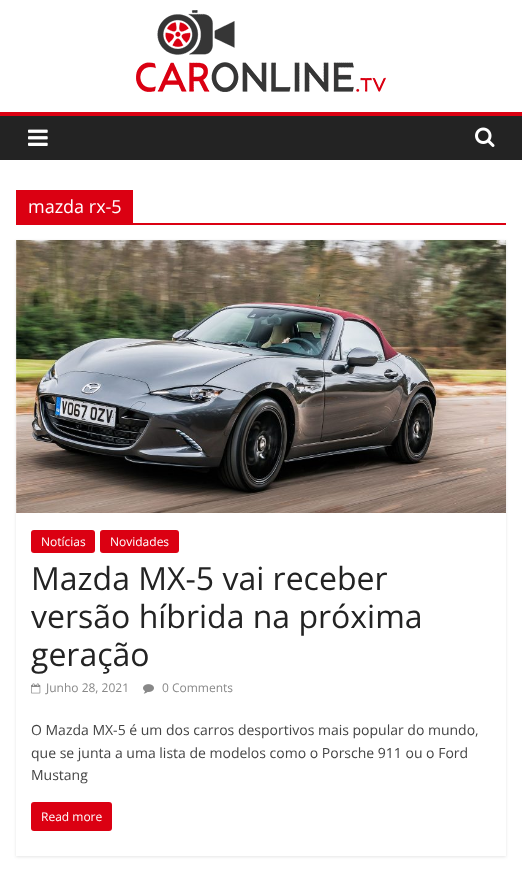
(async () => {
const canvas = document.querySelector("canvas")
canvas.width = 522
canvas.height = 879
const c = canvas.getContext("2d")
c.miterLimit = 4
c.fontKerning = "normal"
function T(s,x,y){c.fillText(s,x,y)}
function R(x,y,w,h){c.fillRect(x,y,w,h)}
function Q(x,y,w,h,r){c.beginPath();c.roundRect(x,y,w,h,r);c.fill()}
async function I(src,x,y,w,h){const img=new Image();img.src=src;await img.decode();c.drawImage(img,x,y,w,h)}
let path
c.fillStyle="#fff"
R(0,0,522,879)
await I("1.png",136,10,250,82)
c.fillStyle="#232323"
R(0,116,522,44)
c.fillStyle="#db0012"
R(0,112,522,4)
await I("2.png",28,129,20,17)
await I("3.png",475,127,20,20)
R(16,223,490,2)
R(16,190,117,33)
c.font="18px Open Sans"
c.fillStyle="#fff"
T("mazda rx-5",28,213)
c.save()
path = new Path2D("M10 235h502v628h-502zm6 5h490v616h-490z")
c.clip(path,"evenodd")
c.fillStyle="#0000001a"
c.filter="blur(1.5px)"
c.beginPath()
c.rect(16,241,490,616)
c.fill()
c.filter="none"
c.restore()
await I("4.png",16,240,490,273)
c.fillStyle="#db0012"
Q(31,530,64,23,3)
c.font="12px Open Sans"
c.fillStyle="#fff"
T("Notícias",41,546)
c.fillStyle="#db0012"
Q(100,530,79,23,3)
c.fillStyle="#fff"
T("Novidades",110,546)
c.font="32px Open Sans"
c.fillStyle="#232323"
T("Mazda MX-5 vai receber",31,590)
T("versão híbrida na próxima",31,628)
T("geração",31,666)
await I("5.png",31,683,10,11)
c.font="12px Open Sans"
c.fillStyle="#888"
T("Junho 28, 2021",46,692)
await I("6.png",143,684,11,10)
T("0 Comments",162,692)
c.font="14px Open Sans"
c.fillStyle="#444"
T("O Mazda MX-5 é um dos carros desportivos mais popular do mundo,",31,735)
T("que se junta a uma lista de modelos como o Porsche 911 ou o Ford",31,758)
T("Mustang",31,780)
c.fillStyle="#db0012"
Q(31,802,81,29,3)
c.font="12px Open Sans"
c.fillStyle="#fff"
T("Read more",41,821)
})()
